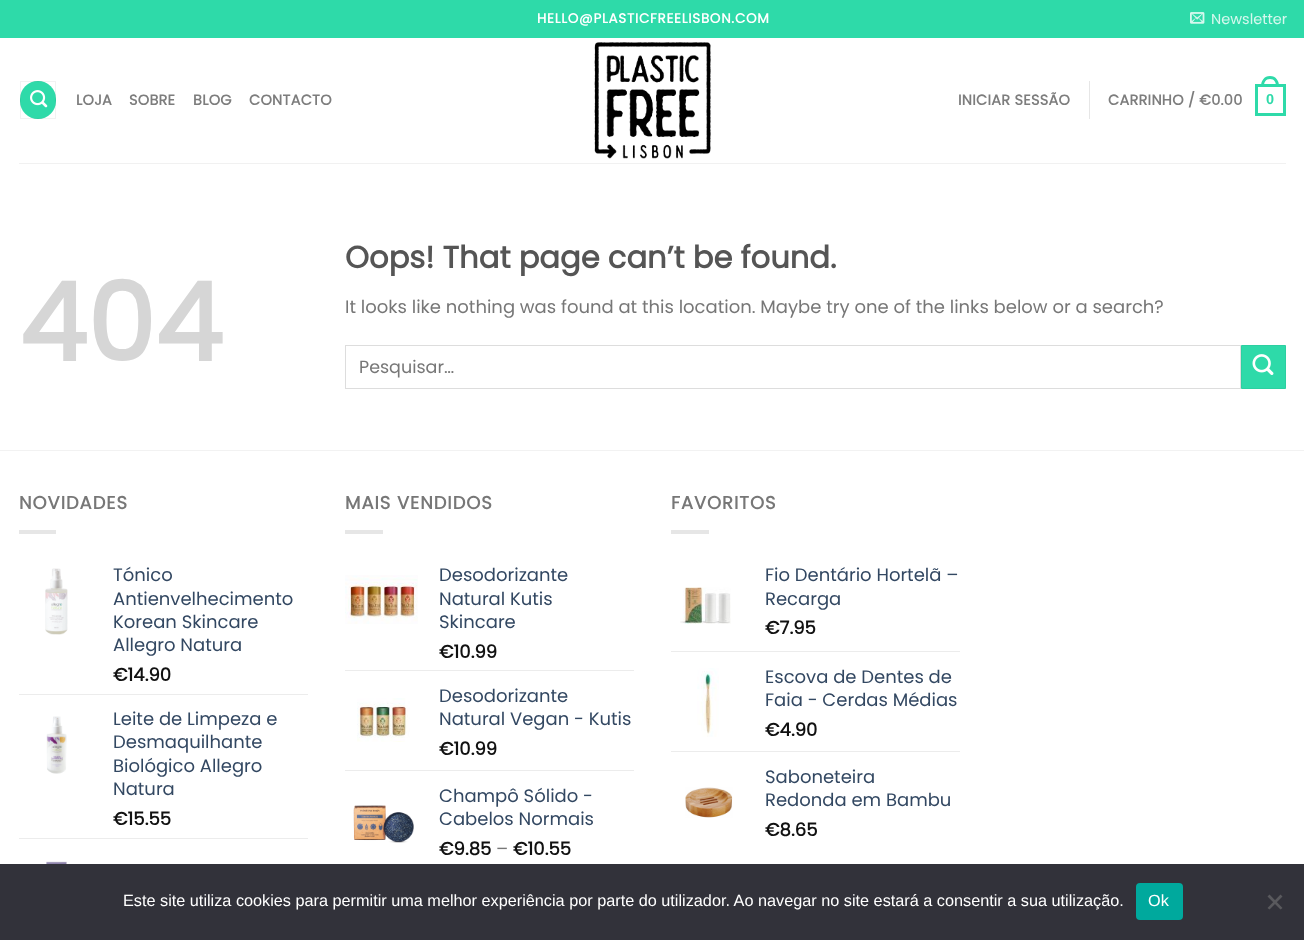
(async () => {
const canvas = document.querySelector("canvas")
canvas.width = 1304
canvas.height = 940
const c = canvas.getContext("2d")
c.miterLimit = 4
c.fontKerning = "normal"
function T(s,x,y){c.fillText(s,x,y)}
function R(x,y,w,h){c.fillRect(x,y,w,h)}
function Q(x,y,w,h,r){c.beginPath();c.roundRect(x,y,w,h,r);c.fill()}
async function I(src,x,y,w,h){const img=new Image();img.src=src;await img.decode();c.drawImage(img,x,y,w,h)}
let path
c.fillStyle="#fff"
R(0,0,1304,940)
c.fillStyle="#2edaa9"
R(0,0,1304,38)
c.letterSpacing="0.7px"
c.font="bold 13.5px Poppins"
c.fillStyle="#fff"
T("HELLO@PLASTICFREELISBON.COM",537,23)
await I("1.png",1190,12,15,12)
c.letterSpacing="0px"
c.font="14.5px Poppins"
c.fillStyle="#d5f8ee"
T("Newsletter",1211,24)
c.fillStyle="#2edaa9"
Q(20,81,36,38,18)
c.strokeStyle="#0000000d"
c.strokeRect(20.5,81.5,35,37)
await I("2.png",30,90,18,18)
c.letterSpacing="0.25px"
c.font="bold 14.5px Poppins"
c.fillStyle="#7d7d7d"
T("LOJA",76,105)
T("SOBRE",129,105)
T("BLOG",193,105)
T("CONTACTO",249,105)
await I("3.png",594,42,117,117)
T("INICIAR SESSÃO",958,105)
c.fillStyle="#e6e6e6"
R(1089,81,1,38)
c.fillStyle="#7d7d7d"
T("CARRINHO / €0.00",1108,105)
c.strokeStyle="#2edaa9"
c.lineWidth=3
c.strokeRect(1256.5,85.5,28,29)
c.fillStyle="#2edaa9"
path = new Path2D("M1270 76c6 0 9 5 9 10h-18c0-5 3-10 9-10zm0 3c4.5 0 6 3.5 6 7h-12c0-3.5 1.5-7 6-7z")
c.fill(path,"evenodd")
c.font="bold 14.5px Liberation Sans"
T("0",1266,104)
c.fillStyle="#f1f1f1"
R(19,163,1267,1)
c.letterSpacing="0px"
c.font="bold 108px Poppins"
c.fillStyle="#d6d6d6"
T("404",19,361)
c.font="bold 30.6px Poppins"
c.fillStyle="#555"
T("Oops! That page can’t be found.",345,268)
c.font="18px Poppins"
c.fillStyle="#777"
T("It looks like nothing was found at this location. Maybe try one of the links below or a search?",345,313)
c.strokeStyle="#ddd"
c.lineWidth=1
c.strokeRect(345.5,345.5,895,43)
c.font="17.5px Poppins"
T("Pesquisar…",359,373)
c.fillStyle="#2edaa9"
c.beginPath()
c.rect(1241.5,345.5,44,43)
c.fill()
c.strokeStyle="#2ccfa1"
c.stroke()
await I("4.png",1252,354,22,21)
c.fillStyle="#f2f2f2"
R(0,450,1304,1)
c.letterSpacing="0.9px"
c.font="bold 18px Poppins"
c.fillStyle="#777"
T("NOVIDADES",19,509)
c.fillStyle="#e6e6e6"
R(19,530,37,4)
await I("5.png",45,568,23,67)
c.letterSpacing="0px"
c.font="18px Poppins"
c.fillStyle="#334862"
T("Tónico",113,581)
T("Antienvelhecimento",113,605)
T("Korean Skincare",113,628)
T("Allegro Natura",113,651)
c.font="bold 18px Poppins"
c.fillStyle="#111"
T("€14.90",113,681)
c.fillStyle="#ececec"
R(19,694,289,1)
await I("6.png",46,716,21,58)
c.font="18px Poppins"
c.fillStyle="#334862"
T("Leite de Limpeza e",113,725)
T("Desmaquilhante",113,748)
T("Biológico Allegro",113,772)
T("Natura",113,795)
c.font="bold 18px Poppins"
c.fillStyle="#111"
T("€15.55",113,825)
c.fillStyle="#ececec"
R(19,838,289,1)
await I("7.png",46,861,21,3)
c.letterSpacing="0.9px"
c.fillStyle="#777"
T("MAIS VENDIDOS",345,509)
c.fillStyle="#e6e6e6"
R(345,530,38,4)
await I("8.png",345,575,73,49)
c.letterSpacing="0px"
c.font="18px Poppins"
c.fillStyle="#334862"
T("Desodorizante",439,581)
T("Natural Kutis",439,605)
T("Skincare",439,628)
c.font="bold 18px Poppins"
c.fillStyle="#111"
T("€10.99",439,658)
c.fillStyle="#ececec"
R(345,670,289,1)
c.font="18px Poppins"
c.fillStyle="#334862"
T("Desodorizante",439,702)
await I("9.png",357,698,53,44)
T("Natural Vegan - Kutis",439,725)
c.font="bold 18px Poppins"
c.fillStyle="#111"
T("€10.99",439,755)
c.fillStyle="#ececec"
R(345,770,289,1)
c.font="18px Poppins"
c.fillStyle="#334862"
T("Champô Sólido -",439,802)
await I("10.png",353,805,61,38)
T("Cabelos Normais",439,825)
c.font="bold 18px Poppins"
c.fillStyle="#111"
T("€9.85",439,855)
c.font="18px Poppins"
c.fillStyle="#777"
T("–",496,855)
c.font="bold 18px Poppins"
c.fillStyle="#111"
T("€10.55",513,855)
c.letterSpacing="0.9px"
c.fillStyle="#777"
T("FAVORITOS",671,509)
c.fillStyle="#e6e6e6"
R(671,530,38,4)
c.letterSpacing="0px"
c.font="18px Poppins"
c.fillStyle="#334862"
T("Fio Dentário Hortelã –",765,581)
await I("11.png",680,587,51,37)
T("Recarga",765,605)
c.font="bold 18px Poppins"
c.fillStyle="#111"
T("€7.95",765,634)
c.fillStyle="#ececec"
R(671,651,289,1)
await I("12.png",697,668,22,69)
c.font="18px Poppins"
c.fillStyle="#334862"
T("Escova de Dentes de",765,683)
T("Faia - Cerdas Médias",765,706)
c.font="bold 18px Poppins"
c.fillStyle="#111"
T("€4.90",765,736)
c.fillStyle="#ececec"
R(671,751,289,1)
c.font="18px Poppins"
c.fillStyle="#334862"
T("Saboneteira",765,783)
await I("13.png",685,787,48,31)
T("Redonda em Bambu",765,806)
c.font="bold 18px Poppins"
c.fillStyle="#111"
T("€8.65",765,836)
c.fillStyle="#32323a"
R(0,864,1304,76)
c.font="16.25px Liberation Sans"
c.fillStyle="#fff"
T("Este site utiliza cookies para permitir uma melhor experiência por parte do utilizador. Ao navegar no site estará a consentir a sua utilização.",123,906)
c.fillStyle="#00a99d"
Q(1136,883,47,37,4)
c.fillStyle="#fff"
T("Ok",1148,906)
c.fillStyle="#59595d"
path = new Path2D("M1280.5 894.5l2 2l-13 13l-2-1.5z")
c.fill(path)
path = new Path2D("M1267.5 896.5l2-2l13 13.5l-2 1.5z")
c.fill(path)
})()
